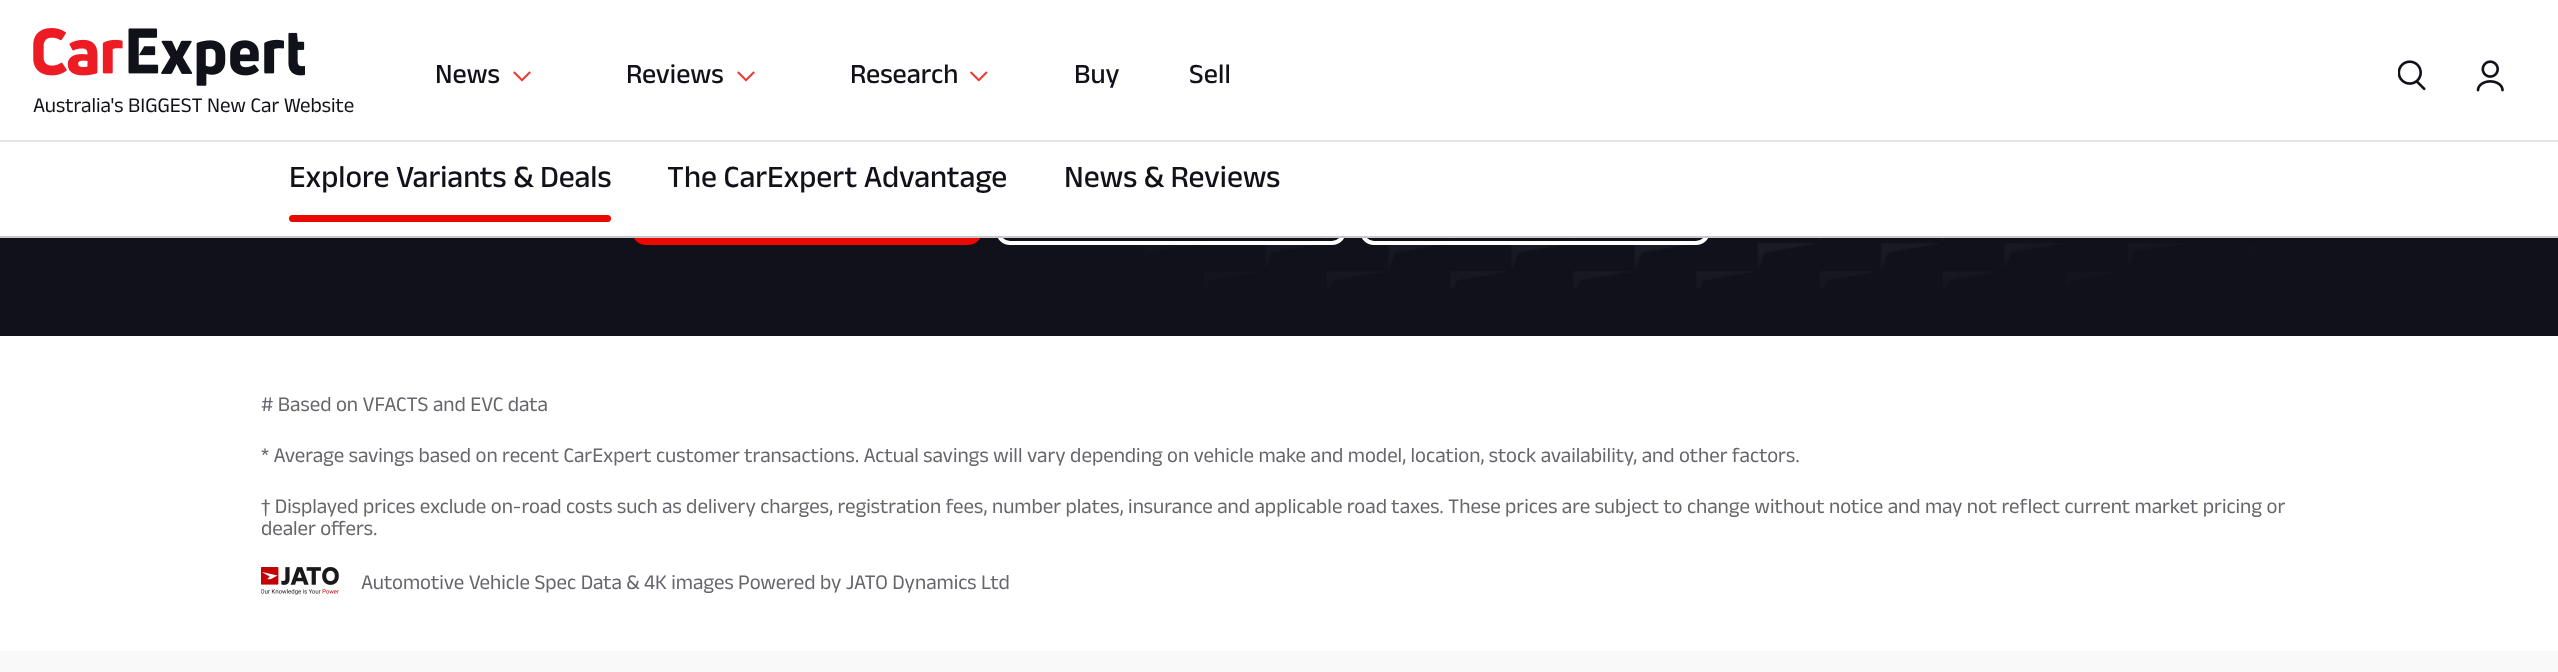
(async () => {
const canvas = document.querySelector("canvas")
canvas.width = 2558
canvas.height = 672
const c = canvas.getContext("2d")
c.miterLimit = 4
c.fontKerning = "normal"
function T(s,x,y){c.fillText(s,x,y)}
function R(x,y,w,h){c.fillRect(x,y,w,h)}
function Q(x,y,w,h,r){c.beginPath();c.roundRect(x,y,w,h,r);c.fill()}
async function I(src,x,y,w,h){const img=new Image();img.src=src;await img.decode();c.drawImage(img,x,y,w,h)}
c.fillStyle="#fff"
R(0,0,2558,672)
c.fillStyle="#e4e4e6"
R(0,140,2558,2)
c.font="500 28px Anek Latin"
c.fillStyle="#11111a"
T("News",435,83)
await I("1.png",513,71,18,11)
T("Reviews",626,83)
await I("1.png",737,71,18,11)
T("Research",850,83)
await I("2.png",970,71,18,11)
T("Buy",1074,83)
T("Sell",1189,83)
await I("3.png",2398,60,28,31)
await I("4.png",2476,60,28,32)
await I("5.png",33,28,272,58)
c.font="21px Anek Latin"
T("Australia's BIGGEST New Car Website",33,112)
R(0,238,2558,98)
c.fillStyle="#eb0800"
Q(632,175,350,70,14)
c.fillStyle="#fff"
R(632,175,350,61)
await I("6.png",1143,238,1114,50)
c.beginPath()
c.roundRect(998,177,346,66,12)
c.strokeStyle="#fff"
c.lineWidth=4
c.stroke()
c.beginPath()
c.roundRect(1362,177,346,66,12)
c.stroke()
c.fillStyle="#c9c9cc"
R(0,236,2558,2)
c.font="500 31.5px Anek Latin"
c.fillStyle="#11111a"
T("Explore Variants & Deals",289,187)
c.fillStyle="#eb0800"
Q(289,215,322,7,3.5)
c.fillStyle="#11111a"
T("The CarExpert Advantage",667,187)
T("News & Reviews",1064,187)
c.font="21px Anek Latin"
c.fillStyle="#65656c"
T("# Based on VFACTS and EVC data",261,411)
T("* Average savings based on recent CarExpert customer transactions. Actual savings will vary depending on vehicle make and model, location, stock availability, and other factors.",261,462)
T("† Displayed prices exclude on-road costs such as delivery charges, registration fees, number plates, insurance and applicable road taxes. These prices are subject to change without notice and may not reflect current market pricing or",261,513)
T("dealer offers.",261,535)
await I("7.png",261,567,78,28)
T("Automotive Vehicle Spec Data & 4K images Powered by JATO Dynamics Ltd",361,589)
c.fillStyle="#f9f9f9"
R(0,651,2558,21)
})()
